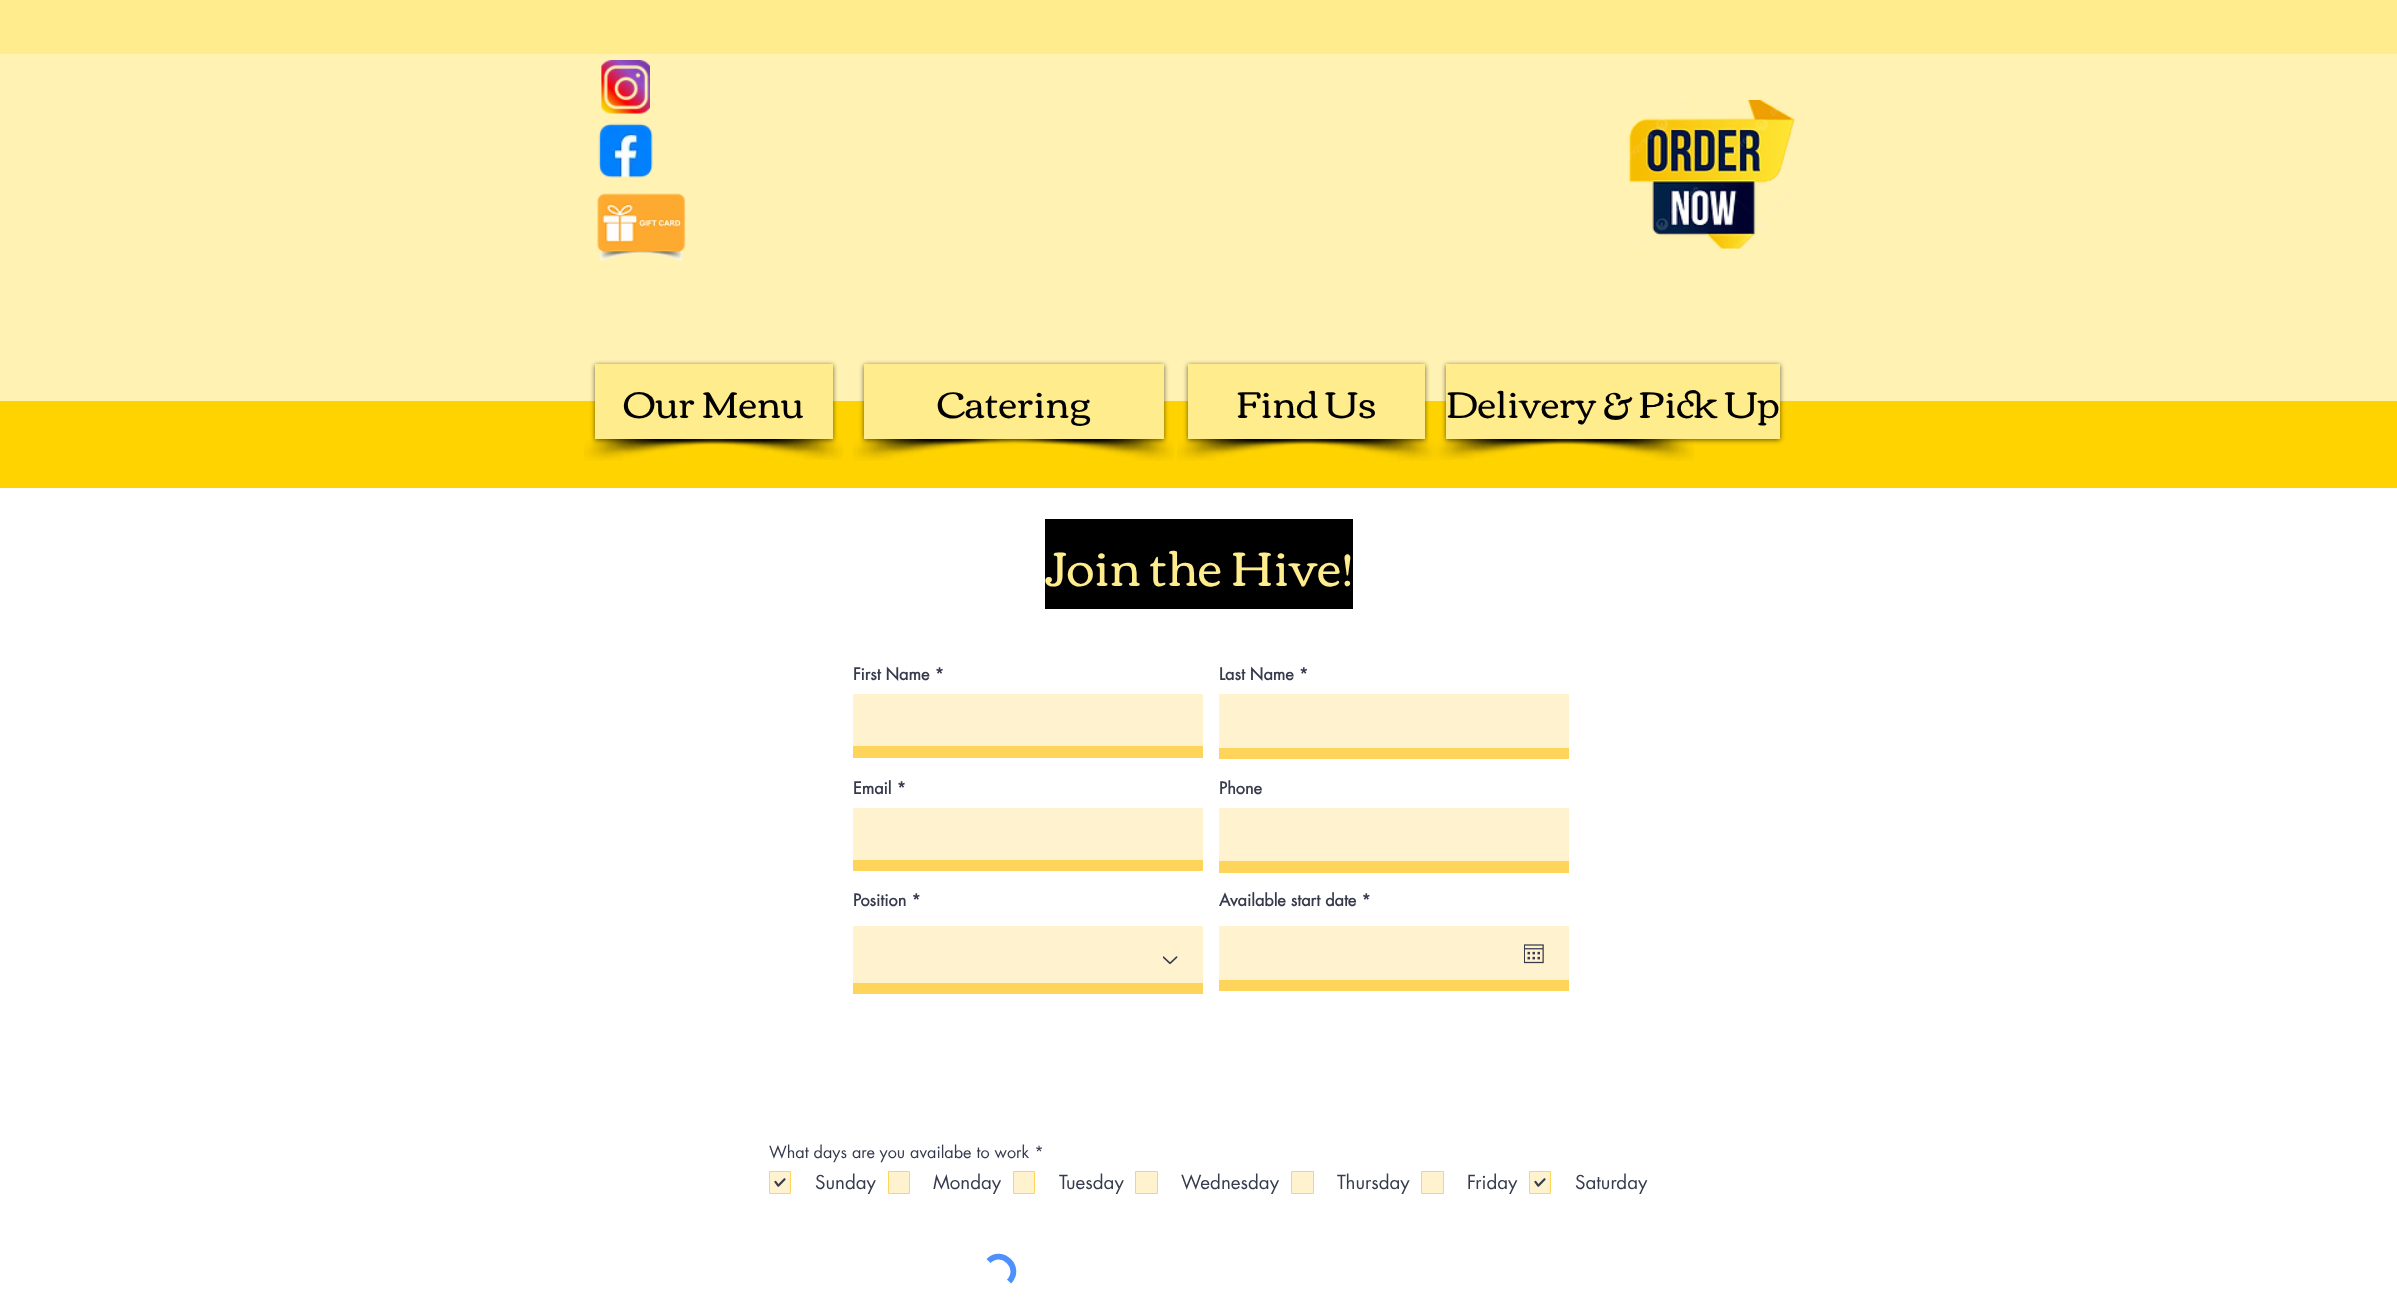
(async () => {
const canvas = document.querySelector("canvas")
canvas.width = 2397
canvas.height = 1308
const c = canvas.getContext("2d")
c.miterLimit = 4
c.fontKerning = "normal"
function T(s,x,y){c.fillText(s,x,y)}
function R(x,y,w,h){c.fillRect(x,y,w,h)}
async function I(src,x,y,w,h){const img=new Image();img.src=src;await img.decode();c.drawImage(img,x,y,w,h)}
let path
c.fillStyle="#fff"
R(0,0,2397,1308)
c.fillStyle="#fff2b3"
R(0,54,2397,347)
c.fillStyle="#ffec8c"
R(0,0,2397,54)
await I("1.png",601,60,49,54)
await I("2.png",598,123,55,55)
await I("3.png",1625,100,173,149)
await I("4.png",597,193,89,68)
c.fillStyle="#ffd300"
R(0,401,2397,87)
await I("5.png",584,439,186,22)
await I("6.png",676,439,167,21)
c.fillStyle="#00000099"
c.filter="blur(2.5px)"
c.beginPath()
c.rect(595,365,238,75)
c.fill()
c.filter="none"
c.fillStyle="#ffec8c"
R(595,364,238,75)
c.font="37.5px Corben"
c.fillStyle="#000"
T("Our Menu",623,418)
await I("7.png",853,439,186,22)
await I("8.png",992,439,182,22)
c.fillStyle="#00000099"
c.filter="blur(2.5px)"
c.beginPath()
c.rect(864,365,300,75)
c.fill()
c.filter="none"
c.fillStyle="#ffec8c"
R(864,364,300,75)
c.fillStyle="#000"
T("Catering",937,418)
await I("9.png",1177,439,186,22)
await I("10.png",1269,439,167,22)
c.fillStyle="#00000099"
c.filter="blur(2.5px)"
c.beginPath()
c.rect(1188,365,237,75)
c.fill()
c.filter="none"
c.fillStyle="#ffec8c"
R(1188,364,237,75)
c.fillStyle="#000"
T("Find Us",1236,418)
await I("11.png",1436,439,186,21)
await I("12.png",1528,439,166,22)
c.fillStyle="#00000099"
c.filter="blur(2.5px)"
c.beginPath()
c.rect(1446,365,334,75)
c.fill()
c.filter="none"
c.fillStyle="#ffec8c"
R(1446,364,334,75)
c.fillStyle="#000"
T("Delivery & Pick Up",1446,418)
R(1045,519,308,90)
c.font="48.75px Corben"
c.fillStyle="#ffec8c"
T("Join the Hive!",1045,586)
c.font="bold 16.25px futura"
c.fillStyle="#373b4d"
T("First Name *",853,680)
c.fillStyle="#fff2ce"
R(853,694,350,52)
c.fillStyle="#ffd45a"
R(853,746,350,12)
c.fillStyle="#373b4d"
T("Last Name *",1219,680)
c.fillStyle="#fff2ce"
R(1219,694,350,54)
c.fillStyle="#ffd45a"
R(1219,748,350,11)
c.fillStyle="#373b4d"
T("Email *",853,794)
c.fillStyle="#fff2ce"
R(853,808,350,52)
c.fillStyle="#ffd45a"
R(853,860,350,11)
c.fillStyle="#373b4d"
T("Phone",1219,794)
c.fillStyle="#fff2ce"
R(1219,808,350,53)
c.fillStyle="#ffd45a"
R(1219,861,350,12)
c.fillStyle="#373b4d"
T("Position *",853,906)
c.fillStyle="#fff2ce"
R(853,926,350,57)
c.fillStyle="#ffd45a"
R(853,983,350,11)
await I("13.png",1163,956,15,9)
c.fillStyle="#373b4d"
T("Available start date *",1219,906)
c.fillStyle="#fff2ce"
R(1219,926,350,54)
c.fillStyle="#ffd45a"
R(1219,980,350,11)
await I("14.png",1524,944,20,20)
c.font="16.25px futura"
c.fillStyle="#373b4d"
T("What days are you availabe to work *",769,1158)
c.fillStyle="#fff2ce"
c.beginPath()
c.rect(769.5,1171.5,21,22)
c.fill()
c.strokeStyle="#ffd45a"
c.stroke()
c.font="18.75px futura"
c.fillStyle="#373b4d"
T("Sunday",815,1189)
await I("15.png",774,1178,12,9)
c.fillStyle="#fff2ce"
c.beginPath()
c.rect(888.5,1171.5,21,22)
c.fill()
c.stroke()
c.fillStyle="#373b4d"
T("Monday",933,1189)
c.fillStyle="#fff2ce"
c.beginPath()
c.rect(1013.5,1171.5,21,22)
c.fill()
c.stroke()
c.fillStyle="#373b4d"
T("Tuesday",1059,1189)
c.fillStyle="#fff2ce"
c.beginPath()
c.rect(1135.5,1171.5,22,22)
c.fill()
c.stroke()
c.fillStyle="#373b4d"
T("Wednesday",1181,1189)
c.fillStyle="#fff2ce"
c.beginPath()
c.rect(1291.5,1171.5,22,22)
c.fill()
c.stroke()
c.fillStyle="#373b4d"
T("Thursday",1337,1189)
c.fillStyle="#fff2ce"
c.beginPath()
c.rect(1421.5,1171.5,22,22)
c.fill()
c.stroke()
c.fillStyle="#373b4d"
T("Friday",1467,1189)
c.fillStyle="#fff2ce"
c.beginPath()
c.rect(1529.5,1171.5,21,22)
c.fill()
c.stroke()
c.fillStyle="#373b4d"
T("Saturday",1575,1189)
await I("15.png",1534,1178,12,9)
path = new Path2D("M988.5 1261c13.5-13.5 34 7 20.5 20.5")
c.strokeStyle="#4d90fe"
c.lineWidth=5.8
c.stroke(path)
})()
